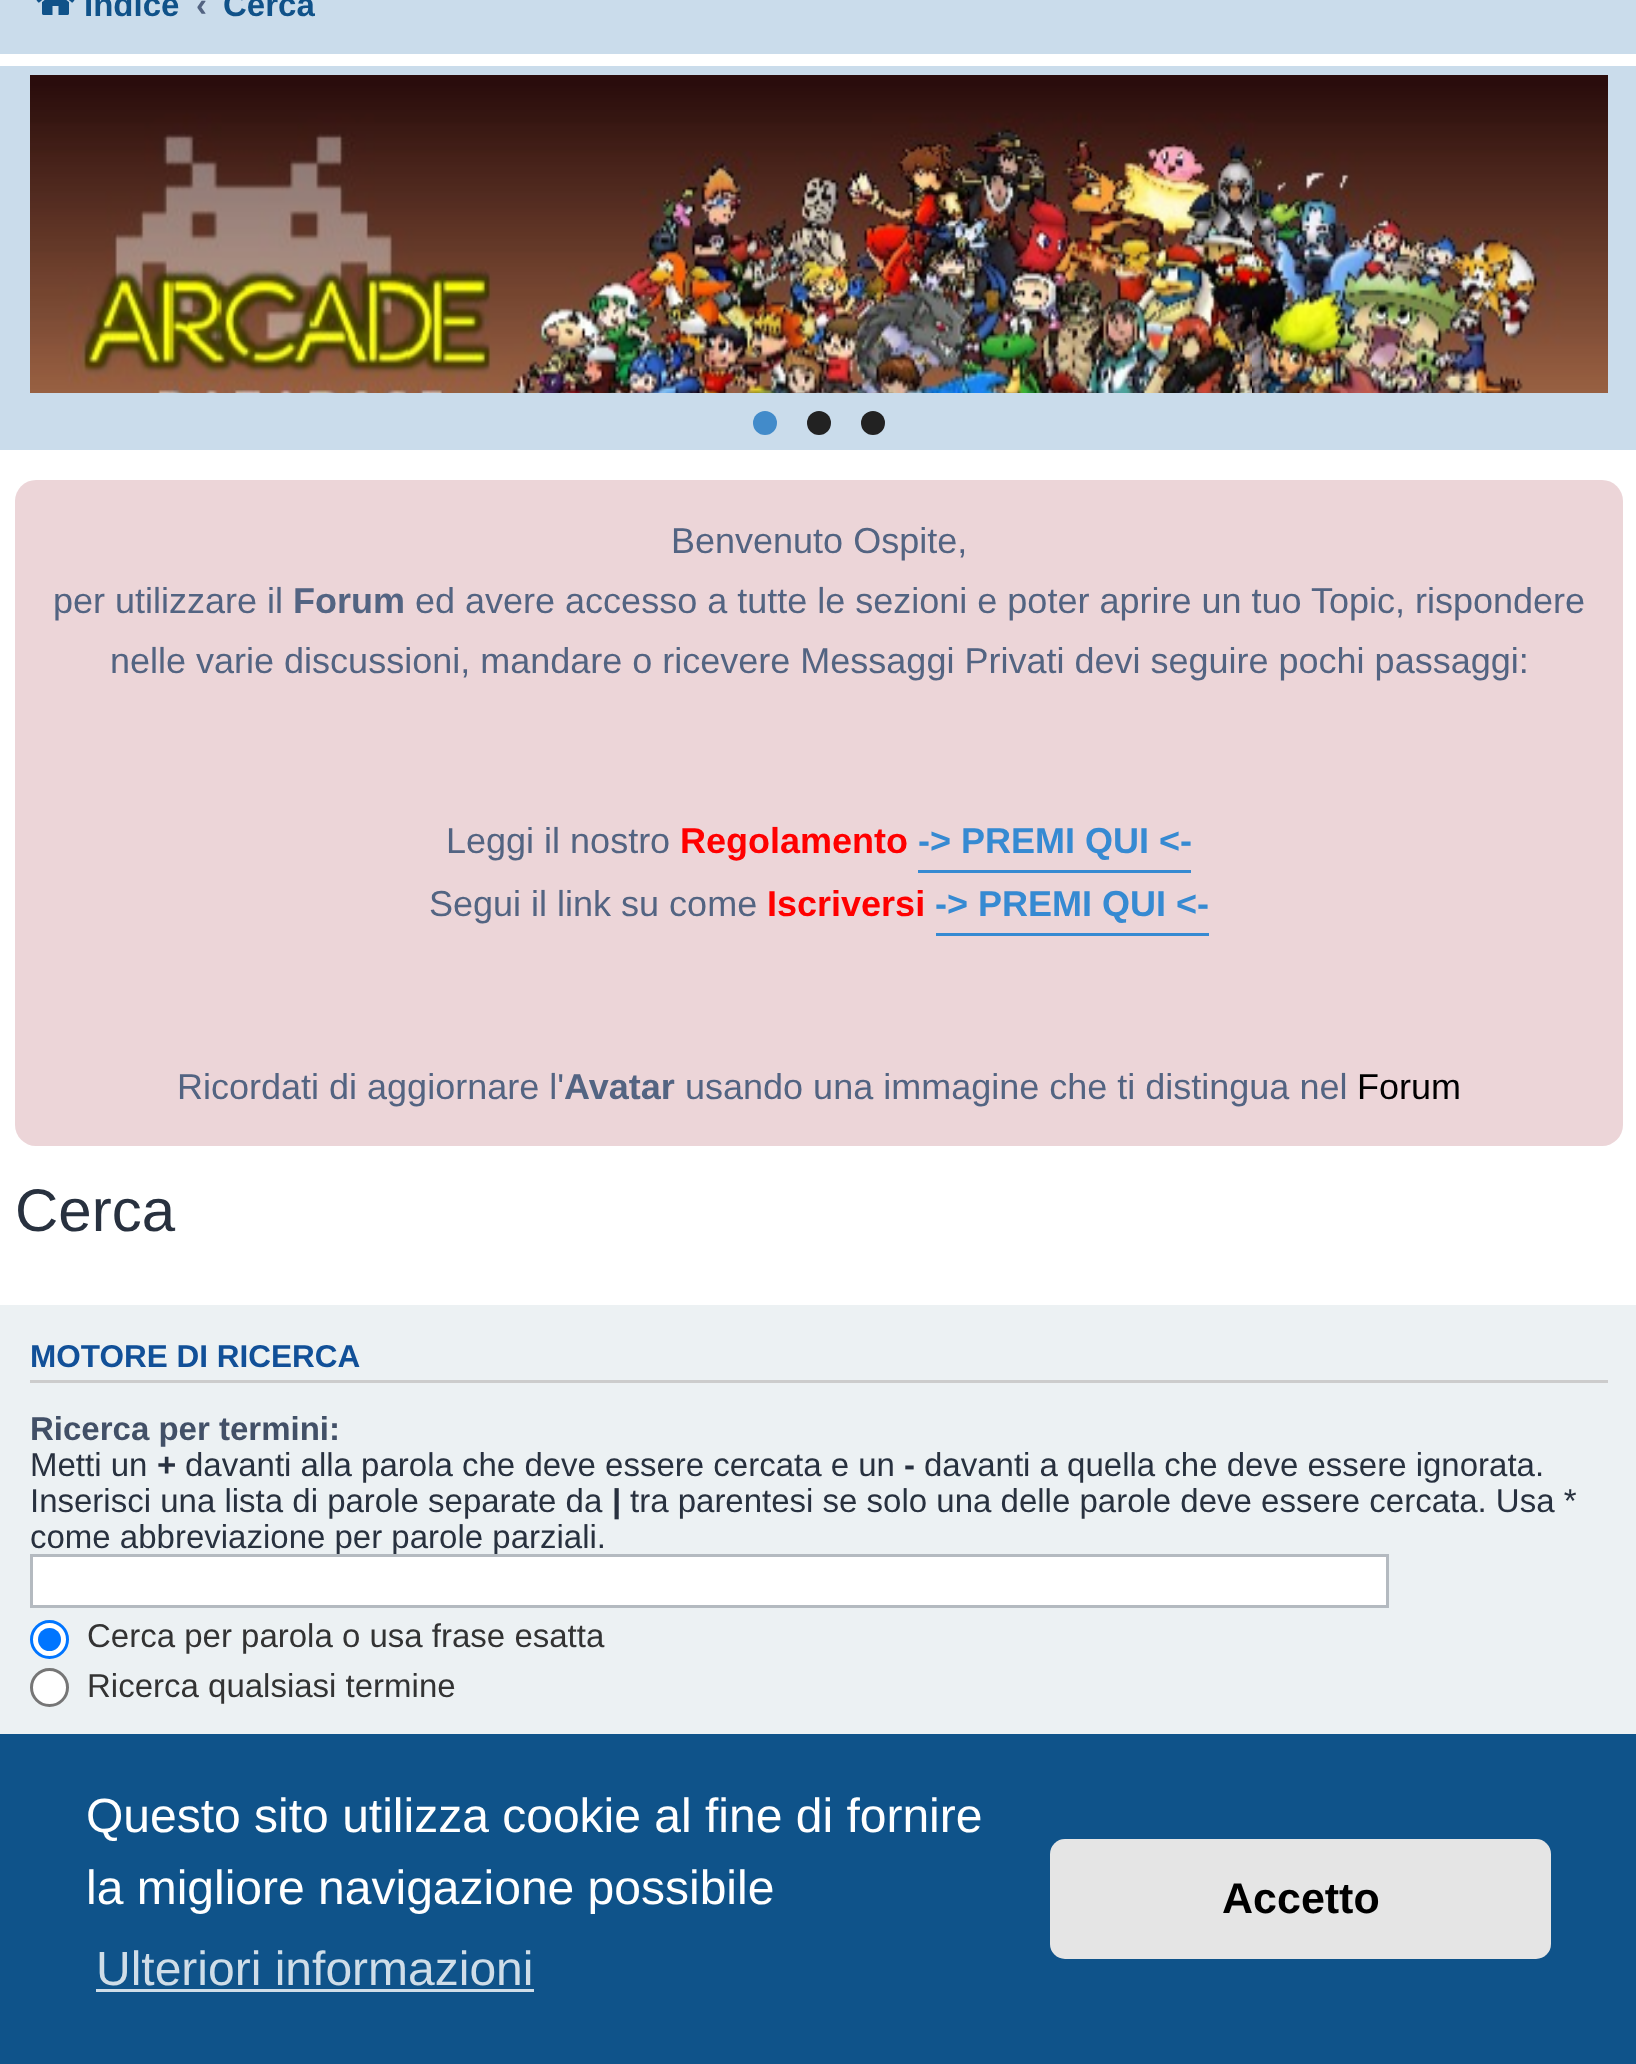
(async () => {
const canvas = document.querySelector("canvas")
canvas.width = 1636
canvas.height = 2064
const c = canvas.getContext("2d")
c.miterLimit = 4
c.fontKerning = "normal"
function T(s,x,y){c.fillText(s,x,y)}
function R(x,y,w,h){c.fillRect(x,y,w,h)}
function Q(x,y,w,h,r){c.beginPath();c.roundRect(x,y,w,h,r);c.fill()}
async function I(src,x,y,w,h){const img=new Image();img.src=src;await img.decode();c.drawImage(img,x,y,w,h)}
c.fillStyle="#fff"
R(0,0,1636,2064)
c.fillStyle="#cadceb"
R(0,0,1636,54)
await I("1.png",36,0,39,15)
c.font="bold 33px Liberation Sans"
c.fillStyle="#105289"
T("Indice",84,16)
c.fillStyle="#536482"
T("‹",196,16)
c.save()
c.beginPath()
c.rect(222,0,93,39)
c.clip()
c.fillStyle="#105289"
T("Cerca",223,16)
c.restore()
c.fillStyle="#cadceb"
R(0,66,1636,384)
await I("2.png",30,75,1578,318)
c.fillStyle="#428bca"
c.beginPath()
c.arc(765,423,12,0,7)
c.fill()
c.fillStyle="#222"
c.beginPath()
c.arc(819,423,12,0,7)
c.fill()
c.beginPath()
c.arc(873,423,12,0,7)
c.fill()
c.fillStyle="#ecd5d8"
Q(15,480,1608,666,21)
c.font="36px Liberation Sans"
c.fillStyle="#536482"
T("Benvenuto Ospite,",671,553)
T("per utilizzare il",53,613)
c.font="bold 36px Liberation Sans"
T("Forum",293,613)
c.font="36px Liberation Sans"
T("ed avere accesso a tutte le sezioni e poter aprire un tuo Topic, rispondere",415,613)
T("nelle varie discussioni, mandare o ricevere Messaggi Privati devi seguire pochi passaggi:",110,673)
T("Leggi il nostro",446,853)
c.font="bold 36px Liberation Sans"
c.fillStyle="#f00"
T("Regolamento",680,853)
c.fillStyle="#368ad2"
R(918,870,273,3)
T("-> PREMI QUI <-",918,853)
c.font="36px Liberation Sans"
c.fillStyle="#536482"
T("Segui il link su come",429,916)
c.font="bold 36px Liberation Sans"
c.fillStyle="#f00"
T("Iscriversi",767,916)
c.fillStyle="#368ad2"
R(936,933,273,3)
T("-> PREMI QUI <-",935,916)
c.font="36px Liberation Sans"
c.fillStyle="#536482"
T("Ricordati di aggiornare l'",177,1099)
c.font="bold 36px Liberation Sans"
T("Avatar",564,1099)
c.font="36px Liberation Sans"
T("usando una immagine che ti distingua nel",685,1099)
c.fillStyle="#000"
T("Forum",1357,1099)
c.font="60px Liberation Sans"
c.fillStyle="#28313f"
T("Cerca",15,1231)
c.fillStyle="#ecf1f3"
R(0,1305,1636,429)
c.fillStyle="#ccc"
R(30,1380,1578,3)
c.font="bold 31.5px Liberation Sans"
c.fillStyle="#115098"
T("MOTORE DI RICERCA",30,1367)
c.font="bold 33px Liberation Sans"
c.fillStyle="#425067"
T("Ricerca per termini:",30,1440)
c.font="33px Liberation Sans"
c.fillStyle="#28313f"
T("Metti un",30,1476)
c.font="bold 33px Liberation Sans"
T("+",157,1476)
c.font="33px Liberation Sans"
T("davanti alla parola che deve essere cercata e un",185,1476)
c.font="bold 33px Liberation Sans"
T("-",904,1476)
c.font="33px Liberation Sans"
T("davanti a quella che deve essere ignorata.",924,1476)
T("Inserisci una lista di parole separate da",30,1512)
c.font="bold 33px Liberation Sans"
T("|",612,1512)
c.font="33px Liberation Sans"
T("tra parentesi se solo una delle parole deve essere cercata. Usa *",630,1512)
T("come abbreviazione per parole parziali.",30,1548)
c.fillStyle="#fff"
c.beginPath()
c.rect(31.5,1555.5,1356,51)
c.fill()
c.strokeStyle="#b4bac0"
c.lineWidth=3
c.stroke()
c.beginPath()
c.arc(49.5,1639.5,18,0,7)
c.fill()
c.strokeStyle="#0075ff"
c.stroke()
c.fillStyle="#0075ff"
c.beginPath()
c.arc(49.5,1639.5,11.5,0,7)
c.fill()
c.fillStyle="#333"
T("Cerca per parola o usa frase esatta",87,1647)
c.fillStyle="#fff"
c.beginPath()
c.arc(49.5,1687.5,18,0,7)
c.fill()
c.strokeStyle="#767676"
c.stroke()
c.fillStyle="#333"
T("Ricerca qualsiasi termine",87,1697)
c.fillStyle="#0f538a"
R(0,1734,1636,330)
c.font="48px Liberation Sans"
c.fillStyle="#fff"
T("Questo sito utilizza cookie al fine di fornire",86,1832)
T("la migliore navigazione possibile",86,1904)
c.fillStyle="#cfdde8"
T("Ulteriori informazioni",96,1985)
R(96,1989,438,3)
c.fillStyle="#e5e5e5"
Q(1050,1839,501,120,15)
c.font="bold 43px Liberation Sans"
c.fillStyle="#000"
T("Accetto",1222,1913)
})()
